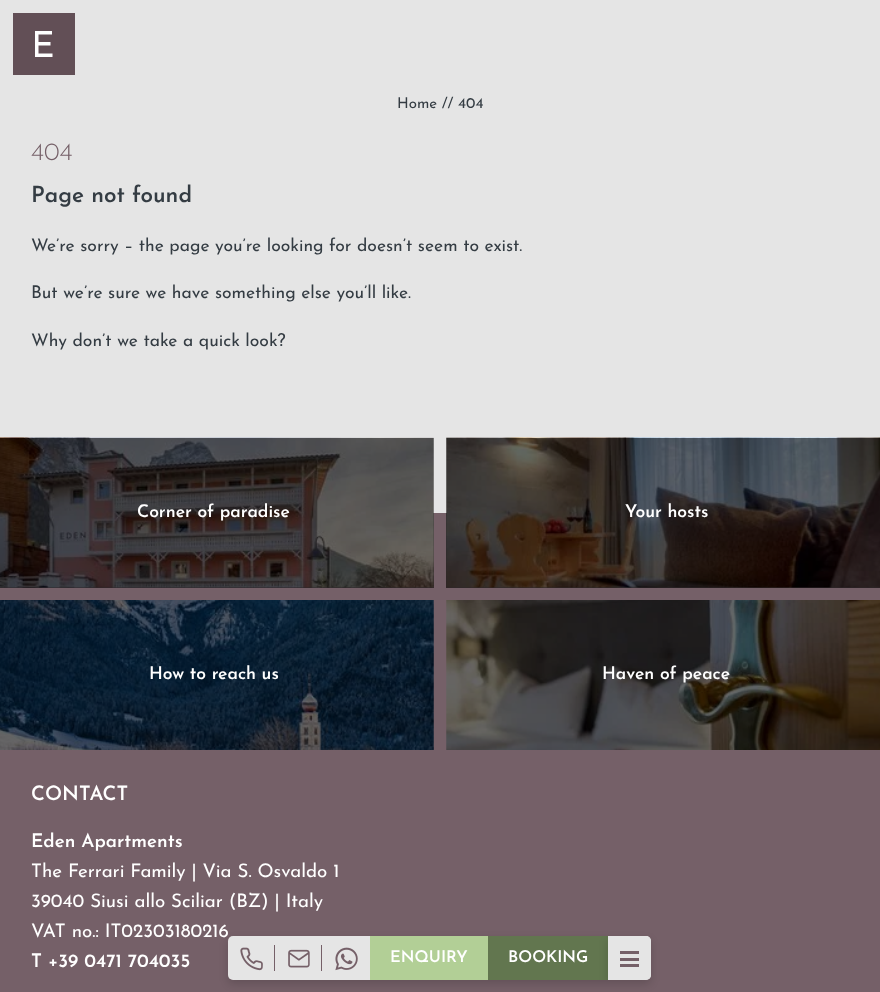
(async () => {
const canvas = document.querySelector("canvas")
canvas.width = 880
canvas.height = 992
const c = canvas.getContext("2d")
c.miterLimit = 4
c.fontKerning = "normal"
function T(s,x,y){c.fillText(s,x,y)}
function R(x,y,w,h){c.fillRect(x,y,w,h)}
function Q(x,y,w,h,r){c.beginPath();c.roundRect(x,y,w,h,r);c.fill()}
async function I(src,x,y,w,h){const img=new Image();img.src=src;await img.decode();c.drawImage(img,x,y,w,h)}
let path
c.fillStyle="#e5e5e5"
R(0,0,880,992)
c.font="100 15px Josefin Sans"
c.fillStyle="#343c43"
T("Home // 404",397,108)
c.font="100 25px 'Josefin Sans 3'"
c.fillStyle="#756068"
T("404",31,160)
c.font="100 22.5px 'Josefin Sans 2'"
c.fillStyle="#343c43"
T("Page not found",31,202)
c.font="100 17.5px Josefin Sans"
T("We’re sorry – the page you’re looking for doesn’t seem to exist.",31,251)
T("But we’re sure we have something else you’ll like.",31,298)
T("Why don’t we take a quick look?",31,346)
c.fillStyle="#756068"
R(0,513,880,479)
c.fillStyle="#2f262a"
R(0,513,434,75)
await I("1.png",0,437,434,151)
c.font="100 17.5px 'Josefin Sans 2'"
c.fillStyle="#fff"
T("Corner of paradise",137,517)
c.fillStyle="#2f262a"
R(446,513,434,75)
await I("2.png",446,437,434,151)
c.fillStyle="#fff"
T("Your hosts",625,517)
await I("3.png",0,600,434,150)
T("How to reach us",149,679)
await I("4.png",446,600,434,150)
T("Haven of peace",602,679)
c.font="100 20px 'Josefin Sans 2'"
T("CONTACT",31,800)
c.font="100 18.75px 'Josefin Sans 2'"
T("Eden Apartments",31,847)
c.font="100 18.75px Josefin Sans"
T("The Ferrari Family | Via S. Osvaldo 1",31,877)
T("39040 Siusi allo Sciliar (BZ) | Italy",31,907)
T("VAT no.: IT02303180216",31,937)
c.font="100 18.75px 'Josefin Sans 2'"
T("T +39 0471 704035",31,967)
c.fillStyle="#624f56"
R(13,13,62,62)
c.fillStyle="#fff"
path = new Path2D("M52 31v3.5h-13.5v7.5h12v3.5h-12v8h14v3.5h-17.5v-26z")
c.fill(path)
c.fillStyle="#00000026"
c.filter="blur(4px)"
c.beginPath()
c.roundRect(228,940,423,44,5)
c.fill()
c.filter="none"
c.fillStyle="#e5e5e5"
Q(228,936,423,44,5)
await I("5.png",240,947,23,24)
c.fillStyle="#756068"
R(274,945,1,26)
await I("6.png",288,949,22,19)
R(321,945,1,26)
await I("7.png",335,947,23,24)
c.fillStyle="#b2cf96"
R(370,936,118,44)
c.font="100 16.25px 'Josefin Sans 2'"
c.fillStyle="#fff"
T("ENQUIRY",390,962)
c.fillStyle="#62764f"
R(488,936,120,44)
c.fillStyle="#fff"
T("BOOKING",508,962)
c.save()
c.beginPath()
c.roundRect(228,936,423,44,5)
c.clip()
c.fillStyle="#00000026"
c.filter="blur(4px)"
c.beginPath()
c.rect(608,940,43,44)
c.fill()
c.filter="none"
c.restore()
c.fillStyle="#e5e5e5"
c.beginPath()
c.roundRect(608,936,43,44,[0,5,5,0])
c.fill()
c.fillStyle="#756068"
R(620,951,19,3)
R(620,958,19,3)
R(620,964,19,3)
})()
